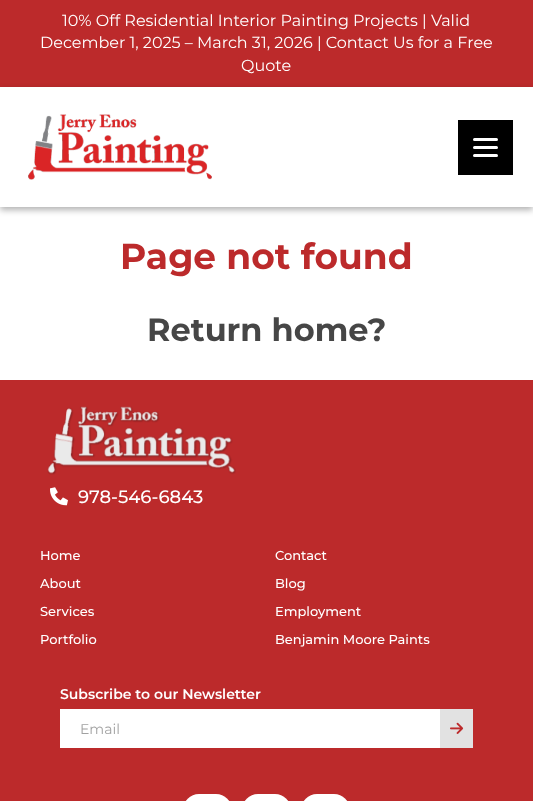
(async () => {
const canvas = document.querySelector("canvas")
canvas.width = 533
canvas.height = 801
const c = canvas.getContext("2d")
c.miterLimit = 4
c.fontKerning = "normal"
function T(s,x,y){c.fillText(s,x,y)}
function R(x,y,w,h){c.fillRect(x,y,w,h)}
function Q(x,y,w,h,r){c.beginPath();c.roundRect(x,y,w,h,r);c.fill()}
async function I(src,x,y,w,h){const img=new Image();img.src=src;await img.decode();c.drawImage(img,x,y,w,h)}
let path
c.fillStyle="#fff"
R(0,0,533,801)
c.fillStyle="#bc2a2b"
R(0,0,533,87)
c.font="16px Montserrat"
c.fillStyle="#fff"
T("10% Off Residential Interior Painting Projects | Valid",62,26)
T("December 1, 2025 – March 31, 2026 | Contact Us for a Free",40,48)
T("Quote",241,71)
c.save()
path = new Path2D("M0 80h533v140h-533zm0 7h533v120h-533z")
c.clip(path,"evenodd")
c.fillStyle="#0000004d"
c.filter="blur(3px)"
c.beginPath()
c.rect(0,90,533,120)
c.fill()
c.filter="none"
c.restore()
await I("1.png",28,114,184,66)
c.fillStyle="#000"
R(458,120,55,55)
c.fillStyle="#fff"
Q(473,138,25,3,1.5)
Q(473,146,25,3,1.5)
Q(473,154,25,3,1.5)
c.font="bold 36px Montserrat"
c.fillStyle="#bc2a2b"
T("Page not found",120,269)
c.font="bold 32px Montserrat"
c.fillStyle="#464646"
T("Return home?",147,341)
c.fillStyle="#bc2a2b"
R(0,380,533,421)
await I("2.png",47,406,189,69)
await I("3.png",50,487,18,19)
c.font="500 18px Montserrat"
c.fillStyle="#fff"
T("978-546-6843",78,503)
c.font="500 13px Montserrat"
T("Home",40,560)
T("Contact",275,560)
T("About",40,588)
T("Blog",275,588)
T("Services",40,616)
T("Employment",275,616)
T("Portfolio",40,644)
T("Benjamin Moore Paints",275,644)
c.font="600 14px Montserrat"
T("Subscribe to our Newsletter",60,699)
R(60,709,380,39)
c.font="14px Montserrat"
c.fillStyle="#a1a1a1"
T("Email",80,734)
c.fillStyle="#e2e2e2"
R(440,709,33,39)
await I("4.png",450,722,14,12)
c.fillStyle="#fff"
Q(183,794,49,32,24.5)
Q(242,794,49,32,24.5)
Q(301,794,49,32,24.5)
})()
